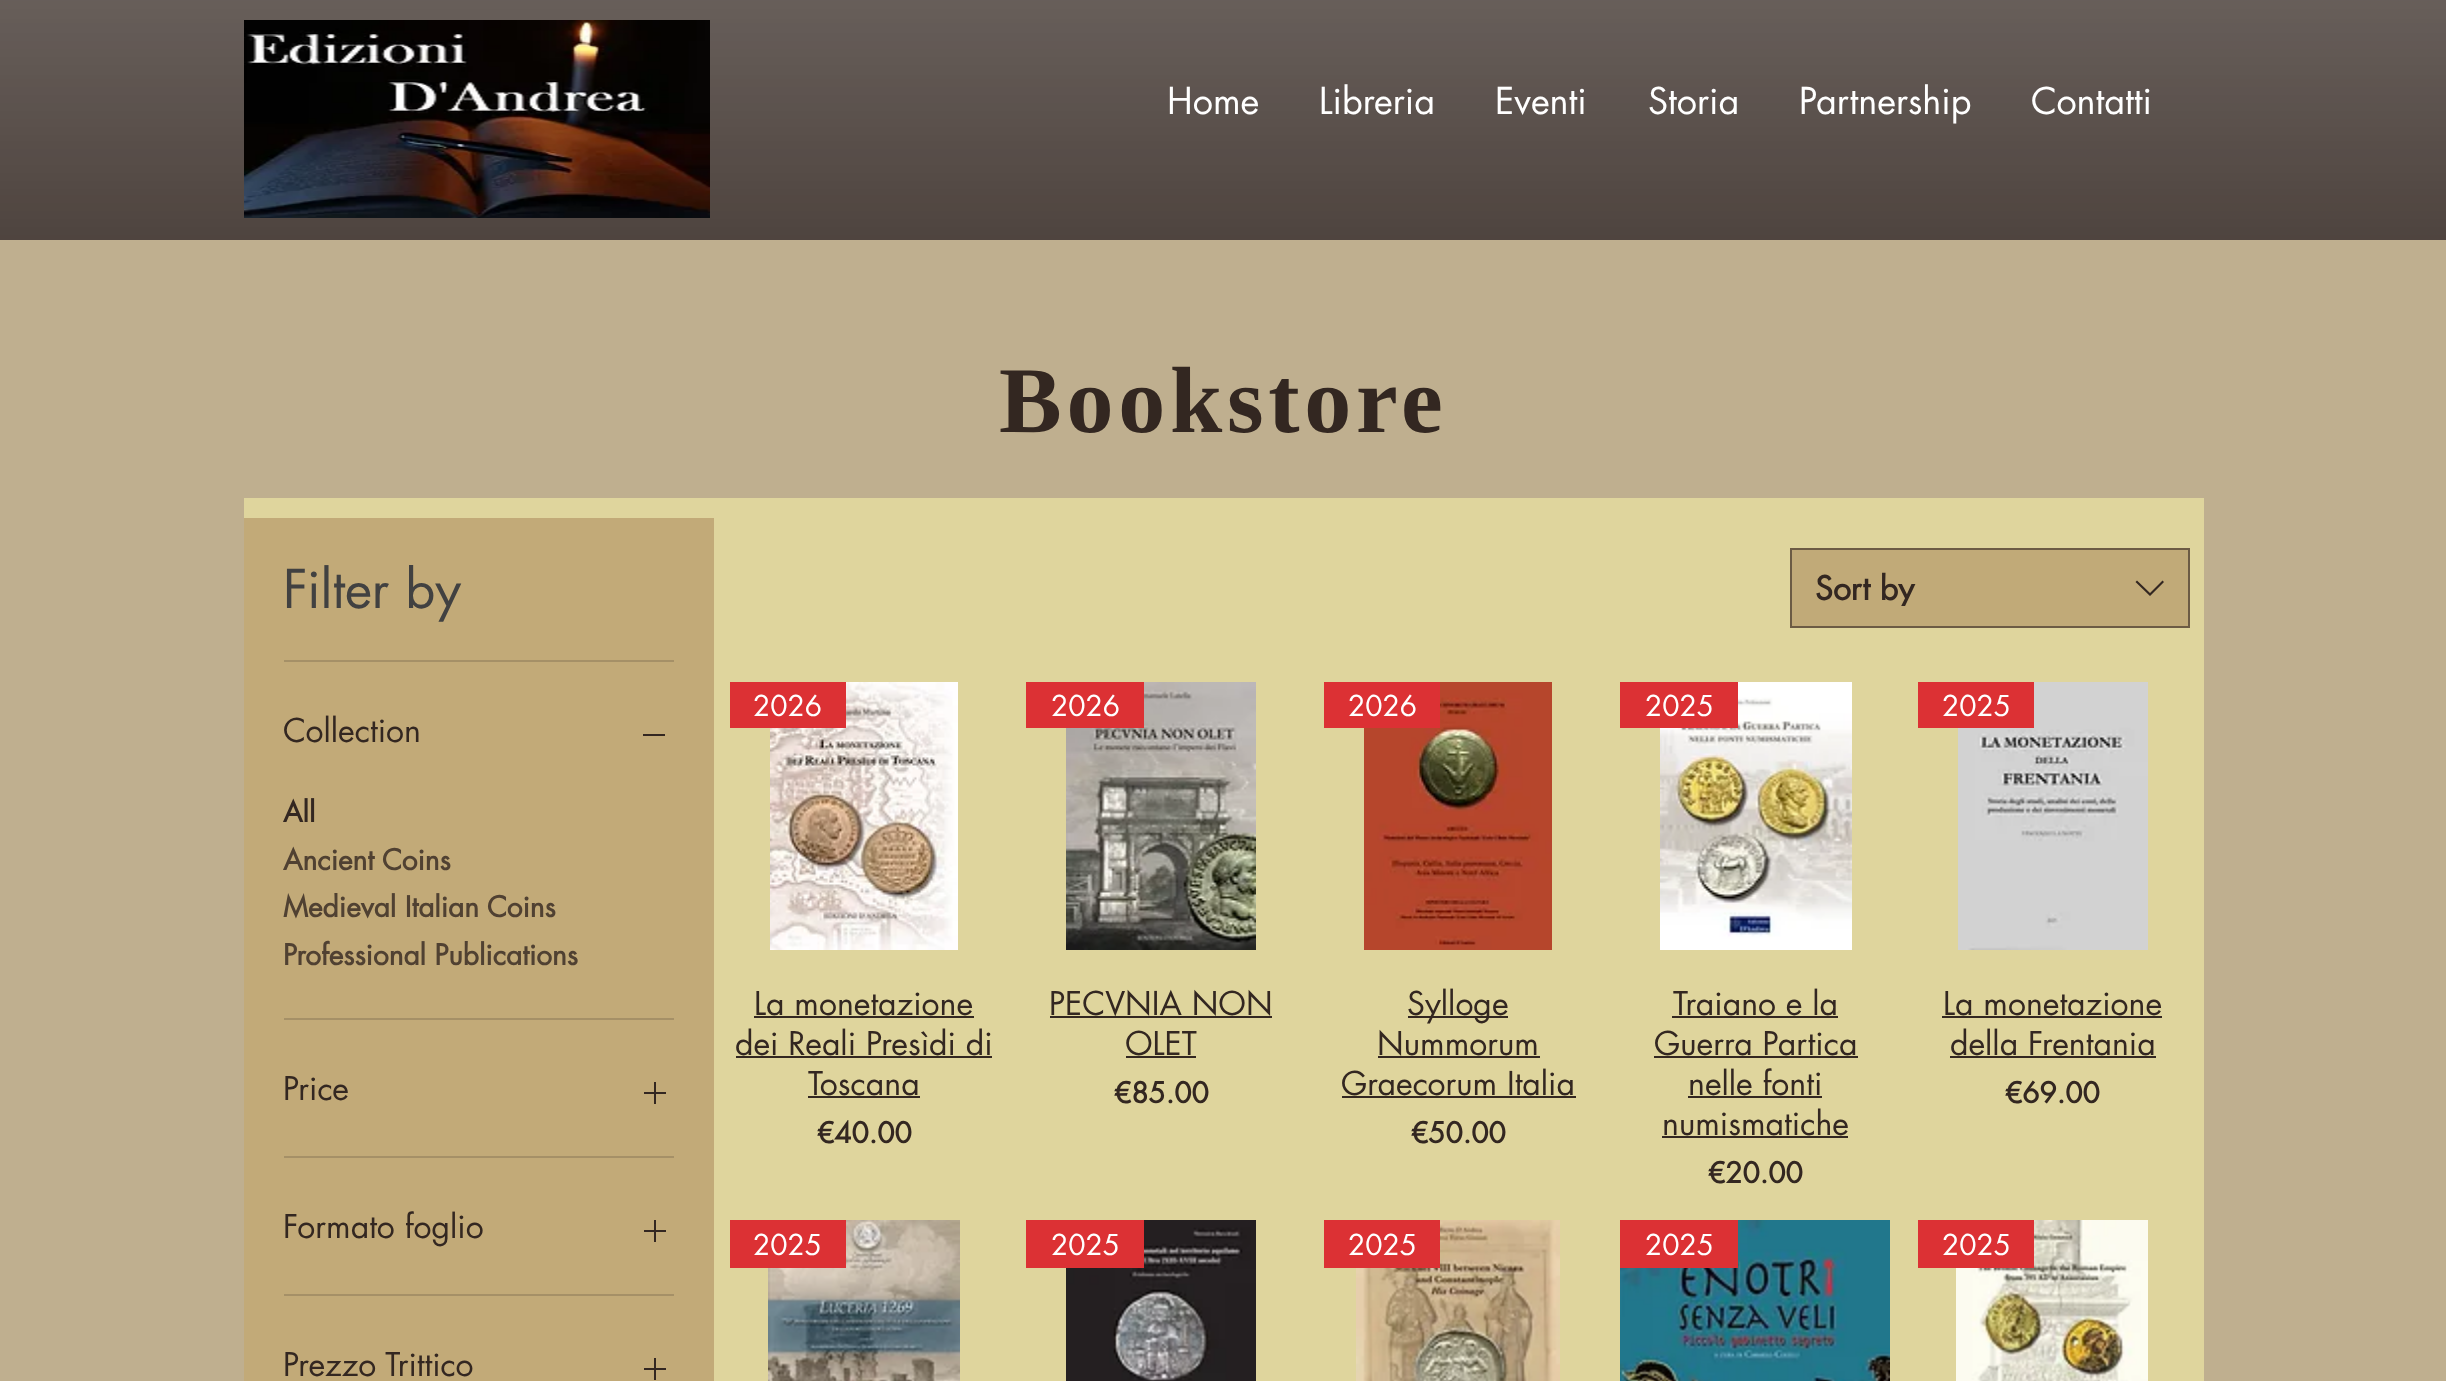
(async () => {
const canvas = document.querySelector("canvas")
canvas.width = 2446
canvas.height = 1381
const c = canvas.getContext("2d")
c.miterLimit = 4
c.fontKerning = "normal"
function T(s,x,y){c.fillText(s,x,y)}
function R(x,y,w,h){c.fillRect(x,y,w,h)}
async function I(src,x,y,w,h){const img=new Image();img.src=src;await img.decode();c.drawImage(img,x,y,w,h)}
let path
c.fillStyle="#bfaf8f"
R(0,0,2446,1381)
c.fillStyle="#332721"
R(0,0,2446,240)
await I("1.png",0,0,2446,240)
await I("2.png",244,20,466,198)
c.font="36px futura"
c.fillStyle="#fff"
T("Home",1167,114)
T("Libreria",1319,114)
T("Eventi",1495,114)
T("Storia",1648,114)
T("Partnership",1799,114)
T("Contatti",2031,114)
c.letterSpacing="4.75px"
c.font="bold 94px Liberation Serif"
c.fillStyle="#332721"
T("Bookstore",999,432)
c.fillStyle="#dfd59d"
R(244,498,1960,883)
c.fillStyle="#c2aa78"
R(244,518,470,863)
c.fillStyle="#a59067"
R(284,660,390,2)
c.letterSpacing="0px"
c.font="52px futura"
c.fillStyle="#414141"
T("Filter by",283,608)
c.fillStyle="#a59067"
R(284,1018,390,2)
c.font="32px futura"
c.fillStyle="#332721"
T("Collection",283,742)
R(643,734,22,2)
c.font="bold 28px futura"
T("All",283,822)
c.fillStyle="#504132"
T("Ancient Coins",283,870)
T("Medieval Italian Coins",283,917)
T("Professional Publications",283,965)
c.fillStyle="#a59067"
R(284,1156,390,2)
c.font="32px futura"
c.fillStyle="#332721"
T("Price",283,1100)
await I("3.png",644,1082,22,22)
c.fillStyle="#a59067"
R(284,1294,390,2)
c.fillStyle="#332721"
T("Formato foglio",283,1238)
await I("3.png",644,1220,22,22)
T("Prezzo Trittico",283,1376)
await I("3.png",644,1358,22,22)
c.fillStyle="#c1aa78"
c.beginPath()
c.rect(1791,549,398,78)
c.fill()
c.strokeStyle="#6c5b44"
c.lineWidth=2
c.stroke()
c.save()
c.beginPath()
c.rect(1816,570,302,36)
c.clip()
c.font="bold 32px futura"
c.fillStyle="#332721"
T("Sort by",1815,600)
c.restore()
c.fillStyle="#332721"
path = new Path2D("M2162.5 580.5l1.5 1.5l-14 14l-14.5-14l1.5-1.5l13 12.5z")
c.fill(path,"evenodd")
await I("4.png",770,682,188,268)
c.fillStyle="#dc3134"
R(730,682,116,46)
c.font="28px futura"
c.fillStyle="#fff"
T("2026",753,716)
c.font="32px futura"
c.fillStyle="#332721"
T("La monetazione",754,1015)
R(754,1016,220,2)
T("dei Reali Presìdi di",735,1055)
R(736,1056,256,2)
T("Toscana",808,1095)
R(808,1096,112,2)
c.font="bold 28px futura"
T("€40.00",817,1143)
await I("5.png",1066,682,190,268)
c.fillStyle="#dc3134"
R(1026,682,118,46)
c.font="28px futura"
c.fillStyle="#fff"
T("2026",1051,716)
c.fillStyle="#332721"
R(1050,1016,222,2)
c.font="32px futura"
T("PECVNIA NON",1049,1015)
T("OLET",1125,1055)
R(1126,1056,70,2)
c.font="bold 28px futura"
T("€85.00",1114,1103)
await I("6.png",1364,682,188,268)
c.fillStyle="#dc3134"
R(1324,682,116,46)
c.font="28px futura"
c.fillStyle="#fff"
T("2026",1348,716)
c.fillStyle="#332721"
R(1408,1016,100,2)
c.font="32px futura"
T("Sylloge",1407,1015)
R(1378,1056,162,2)
T("Nummorum",1377,1055)
T("Graecorum Italia",1341,1095)
R(1342,1096,234,2)
c.font="bold 28px futura"
T("€50.00",1411,1143)
await I("7.png",1660,682,192,268)
c.fillStyle="#dc3134"
R(1620,682,118,46)
c.font="28px futura"
c.fillStyle="#fff"
T("2025",1645,716)
c.font="32px futura"
c.fillStyle="#332721"
T("Traiano e la",1673,1015)
R(1672,1016,166,2)
T("Guerra Partica",1654,1055)
R(1654,1056,204,2)
T("nelle fonti",1688,1095)
R(1688,1096,134,2)
T("numismatiche",1662,1135)
R(1662,1136,186,2)
c.font="bold 28px futura"
T("€20.00",1708,1183)
await I("8.png",1958,682,190,268)
c.fillStyle="#dc3134"
R(1918,682,116,46)
c.font="28px futura"
c.fillStyle="#fff"
T("2025",1942,716)
c.font="32px futura"
c.fillStyle="#332721"
T("La monetazione",1943,1015)
R(1942,1016,220,2)
T("della Frentania",1950,1055)
R(1950,1056,206,2)
c.font="bold 28px futura"
T("€69.00",2005,1103)
await I("9.png",768,1220,192,161)
c.fillStyle="#dc3134"
R(730,1220,116,48)
c.font="28px futura"
c.fillStyle="#fff"
T("2025",753,1255)
await I("10.png",1066,1220,190,161)
c.fillStyle="#dc3134"
R(1026,1220,118,48)
c.fillStyle="#fff"
T("2025",1051,1255)
await I("11.png",1356,1220,204,161)
c.fillStyle="#dc3134"
R(1324,1220,116,48)
c.fillStyle="#fff"
T("2025",1348,1255)
await I("12.png",1620,1220,270,161)
c.fillStyle="#dc3134"
R(1620,1220,118,48)
c.fillStyle="#fff"
T("2025",1645,1255)
await I("13.png",1956,1220,192,161)
c.fillStyle="#dc3134"
R(1918,1220,116,48)
c.fillStyle="#fff"
T("2025",1942,1255)
})()
